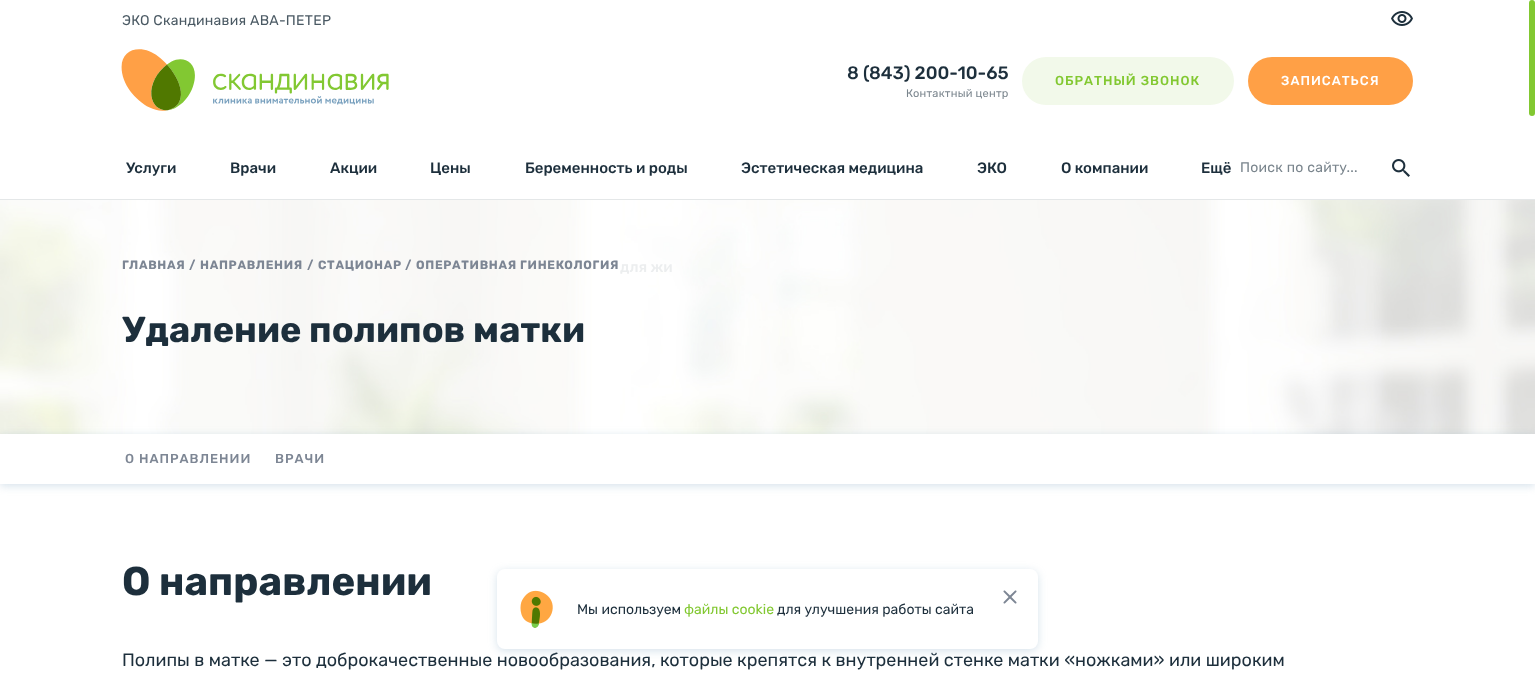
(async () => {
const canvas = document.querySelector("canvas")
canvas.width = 1535
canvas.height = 673
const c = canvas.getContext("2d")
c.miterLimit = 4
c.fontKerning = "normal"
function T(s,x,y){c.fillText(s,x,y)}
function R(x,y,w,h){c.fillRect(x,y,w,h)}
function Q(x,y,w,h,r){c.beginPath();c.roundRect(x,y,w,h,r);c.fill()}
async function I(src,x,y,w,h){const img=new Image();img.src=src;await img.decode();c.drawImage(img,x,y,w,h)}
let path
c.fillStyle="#fff"
R(0,0,1535,673)
c.letterSpacing="0.25px"
c.font="14px Rubik"
c.fillStyle="#4a5963"
T("ЭКО Скандинавия АВА-ПЕТЕР",122,25)
await I("1.png",1391,11,22,15)
await I("2.png",121,49,268,62)
c.letterSpacing="0px"
c.font="500 18px Rubik"
c.fillStyle="#1d2f3c"
T("8 (843) 200-10-65",847,79)
c.letterSpacing="0.25px"
c.font="11px Rubik"
c.fillStyle="#7a858d"
T("Контактный центр",906,97)
c.fillStyle="#f2f9ea"
Q(1022,57,212,48,24)
c.letterSpacing="1px"
c.font="500 13px Rubik"
c.fillStyle="#82c831"
T("ОБРАТНЫЙ ЗВОНОК",1055,85)
c.fillStyle="#ffa046"
Q(1248,57,165,48,24)
c.fillStyle="#fff"
T("ЗАПИСАТЬСЯ",1281,85)
c.fillStyle="#e4e7e8"
R(0,199,1535,1)
c.letterSpacing="0px"
c.font="500 15px Rubik"
c.fillStyle="#1d2f3c"
T("Услуги",126,173)
T("Врачи",230,173)
T("Акции",330,173)
T("Цены",430,173)
T("Беременность и роды",525,173)
T("ЭКО",977,173)
await I("4.png",0,200,1535,234)
c.fillStyle="#eceeef"
T("для жи",620,272)
c.fillStyle="#1d2f3c"
T("Эстетическая медицина",741,173)
T("О компании",1061,173)
T("Ещё",1201,173)
c.letterSpacing="0.25px"
c.font="14px Rubik"
c.fillStyle="#7a858d"
T("Поиск по сайту...",1240,172)
await I("3.png",1392,159,18,18)
c.letterSpacing="0.7px"
c.font="bold 12px Rubik"
c.fillStyle="#7d8694"
T("ГЛАВНАЯ",122,269)
c.letterSpacing="1px"
T("/",189,269)
c.letterSpacing="0.7px"
T("НАПРАВЛЕНИЯ",200,269)
c.letterSpacing="1px"
T("/",307,269)
c.letterSpacing="0.7px"
T("СТАЦИОНАР",318,269)
c.letterSpacing="1px"
T("/",405,269)
c.letterSpacing="0.7px"
T("ОПЕРАТИВНАЯ ГИНЕКОЛОГИЯ",416,269)
c.letterSpacing="0px"
c.font="bold 36px Rubik"
c.fillStyle="#1d2f3c"
T("Удаление полипов матки",122,342)
c.save()
path = new Path2D("M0 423h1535v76h-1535zm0 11h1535v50h-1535z")
c.clip(path,"evenodd")
c.fillStyle="#78a0be4d"
c.filter="blur(4px)"
c.beginPath()
c.rect(0,436,1535,50)
c.fill()
c.filter="none"
c.restore()
c.letterSpacing="1px"
c.font="500 13px Rubik"
c.fillStyle="#7d8694"
T("О НАПРАВЛЕНИИ",125,463)
T("ВРАЧИ",275,463)
c.letterSpacing="0px"
c.font="bold 40px Rubik"
c.fillStyle="#1d2f3c"
T("О направлении",122,595)
c.font="18px Rubik"
T("Полипы в матке — это доброкачественные новообразования, которые крепятся к внутренней стенке матки «ножками» или широким",122,666)
c.fillStyle="#78a0be4d"
c.filter="blur(4px)"
c.beginPath()
c.roundRect(497,571,541,80,8)
c.fill()
c.filter="none"
c.fillStyle="#fff"
Q(497,569,541,80,8)
await I("5.png",1003,590,14,14)
await I("6.png",520,590,33,38)
c.font="14px Rubik"
c.fillStyle="#1d2f3c"
T("Мы используем",577,614)
c.fillStyle="#82c831"
T("файлы cookie",684,614)
c.fillStyle="#1d2f3c"
T("для улучшения работы сайта",777,614)
c.fillStyle="#82c831"
Q(1529,0,6,116,3)
})()
